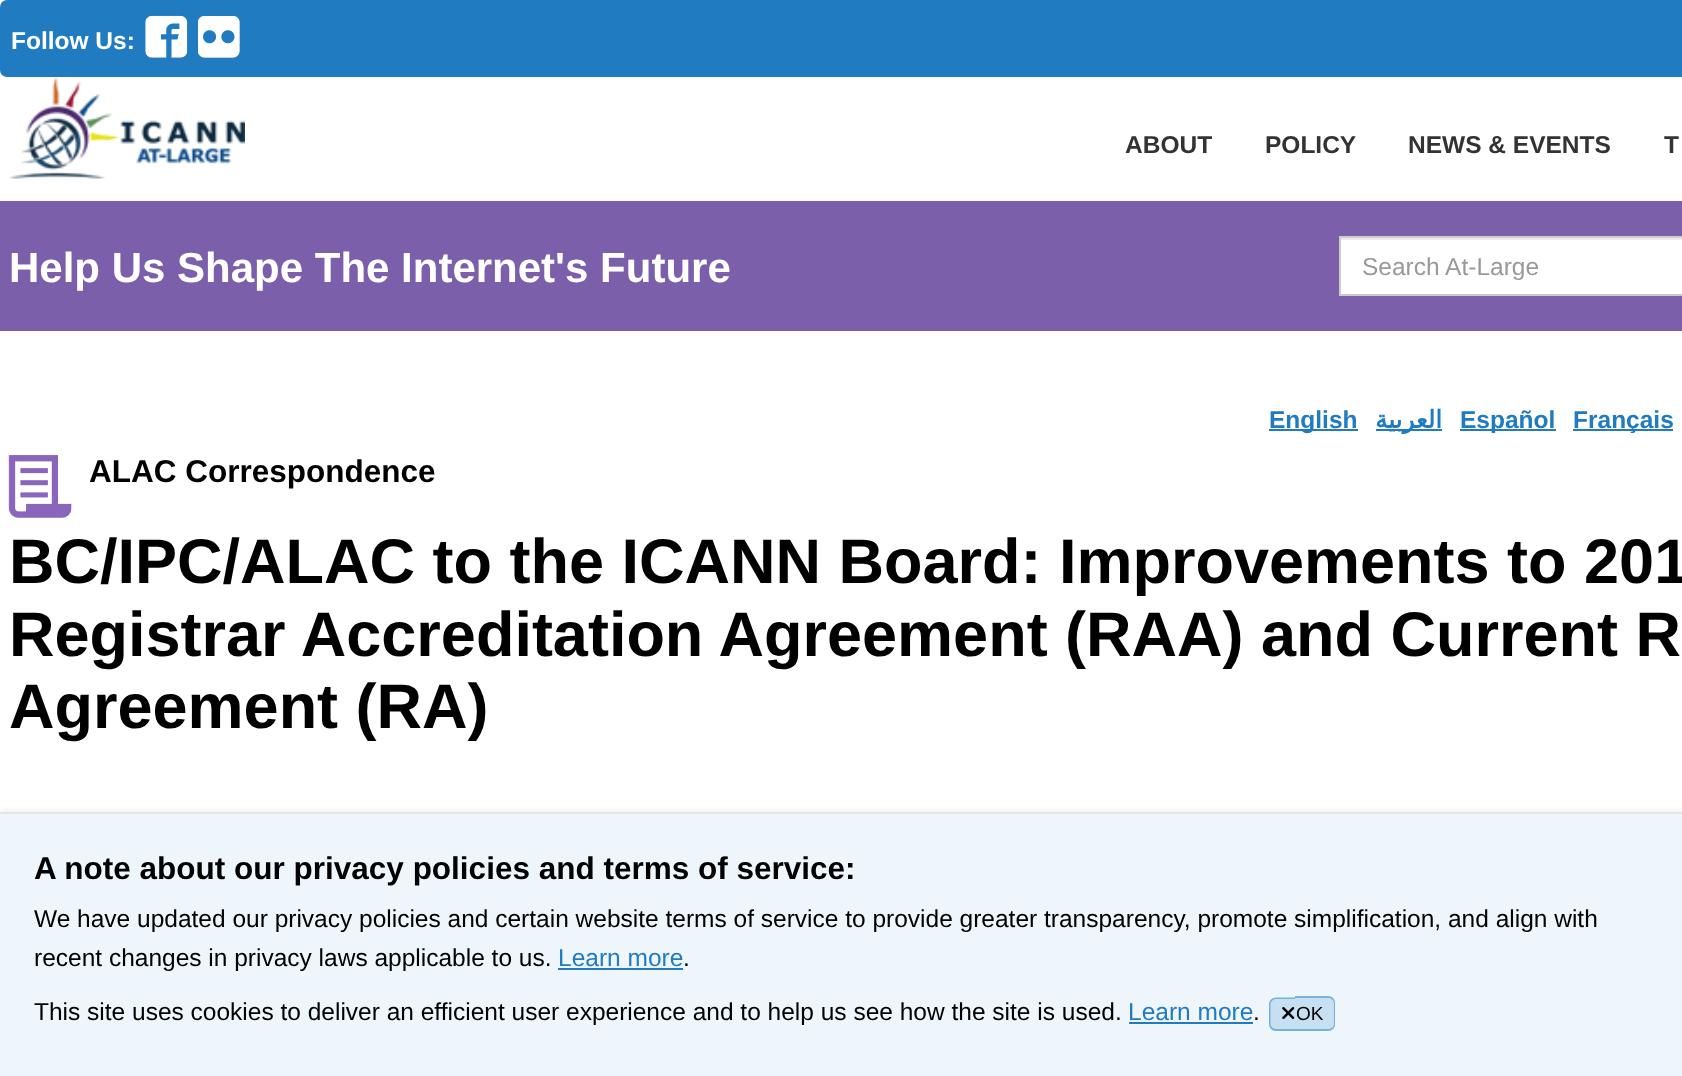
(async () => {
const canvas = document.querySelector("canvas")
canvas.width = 1682
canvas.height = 1076
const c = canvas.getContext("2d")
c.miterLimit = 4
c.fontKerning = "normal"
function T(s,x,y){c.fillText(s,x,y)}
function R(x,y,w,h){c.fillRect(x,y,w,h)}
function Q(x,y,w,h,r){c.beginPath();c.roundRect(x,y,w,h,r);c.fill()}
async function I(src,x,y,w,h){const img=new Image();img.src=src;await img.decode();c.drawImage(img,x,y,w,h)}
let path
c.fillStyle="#fff"
R(0,0,1682,1076)
c.fillStyle="#217bc0"
Q(0,0,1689,77,7)
c.font="bold 24.5px Liberation Sans"
c.fillStyle="#fff"
T("Follow Us:",11,49)
await I("1.png",145,15,43,43)
await I("2.png",198,16,42,42)
await I("3.png",9,77,236,102)
c.fillStyle="#333"
T("ABOUT",1125,153)
T("POLICY",1265,153)
T("NEWS & EVENTS",1408,153)
T("T",1664,153)
c.fillStyle="#7c5faa"
R(0,201,1682,130)
c.font="bold 42px Liberation Sans"
c.fillStyle="#fff"
T("Help Us Shape The Internet's Future",9,282)
R(1341,240,341,54)
c.fillStyle="#ececec"
R(1341,238,341,2)
c.strokeStyle="#ccc"
c.lineWidth=2
c.strokeRect(1340,237,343,58)
c.font="24.5px Liberation Sans"
c.fillStyle="#999"
T("Search At-Large",1362,275)
c.fillStyle="#217bc0"
R(1269,429,89,2)
c.font="bold 24.5px Liberation Sans"
T("English",1269,428)
R(1376,429,66,2)
c.direction="rtl"
c.font="bold 24.5px DejaVu Sans"
T("العربية",1442,428)
R(1460,429,96,2)
c.direction="ltr"
c.font="bold 24.5px Liberation Sans"
T("Español",1460,428)
R(1573,429,100,2)
T("Français",1573,428)
await I("4.png",8,455,64,63)
c.font="bold 31.5px Liberation Sans"
c.fillStyle="#000"
T("ALAC Correspondence",89,482)
c.font="bold 63px Liberation Sans"
T("BC/IPC/ALAC to the ICANN Board: Improvements to 201",9,583)
T("Registrar Accreditation Agreement (RAA) and Current R",9,656)
T("Agreement (RA)",9,728)
c.fillStyle="#0000000d"
c.filter="blur(2.5px)"
c.beginPath()
c.rect(0,810,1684,265)
c.fill()
c.filter="none"
c.fillStyle="#eff6fb"
R(0,814,1682,262)
c.fillStyle="#e6e6e6"
R(0,812,1682,2)
c.font="bold 31.5px Liberation Sans"
c.fillStyle="#000"
T("A note about our privacy policies and terms of service:",34,879)
c.font="24.5px Liberation Sans"
T("We have updated our privacy policies and certain website terms of service to provide greater transparency, promote simplification, and align with",34,927)
T("recent changes in privacy laws applicable to us.",34,966)
c.fillStyle="#217bc0"
T("Learn more",558,966)
R(558,968,125,2)
c.fillStyle="#000"
T(".",683,966)
T("This site uses cookies to deliver an efficient user experience and to help us see how the site is used.",34,1020)
c.fillStyle="#217bc0"
T("Learn more",1128,1020)
R(1129,1022,124,2)
c.fillStyle="#000"
T(".",1253,1020)
c.fillStyle="#c6dff1"
c.beginPath()
c.roundRect(1269,998,26,33,[7,0,0,7])
c.fill()
c.fillStyle="#75b1dc"
path = new Path2D("M1276 997.5h19v33.5h-19c-4 0-7-3.5-7-7v-19.5c0-4 3-7 7-7zm0 1.5h19v30h-19c-3 0-5.5-2.5-5.5-5v-19.5c0-3 2.5-5.5 5.5-5.5z")
c.fill(path,"evenodd")
c.fillStyle="#c6dff1"
c.beginPath()
c.roundRect(1295,996,40,35,[0,7,7,0])
c.fill()
c.fillStyle="#75b1dc"
path = new Path2D("M1295 996h33c4 0 7 3 7 7v21c0 4-3 7-7 7h-33zm0 2h33c3 0 6 2 6 5v21c0 3-3 5-6 5h-33z")
c.fill(path,"evenodd")
await I("5.png",1282,1007,13,12)
c.font="19px Liberation Sans"
c.fillStyle="#000"
T("OK",1296,1020)
})()
